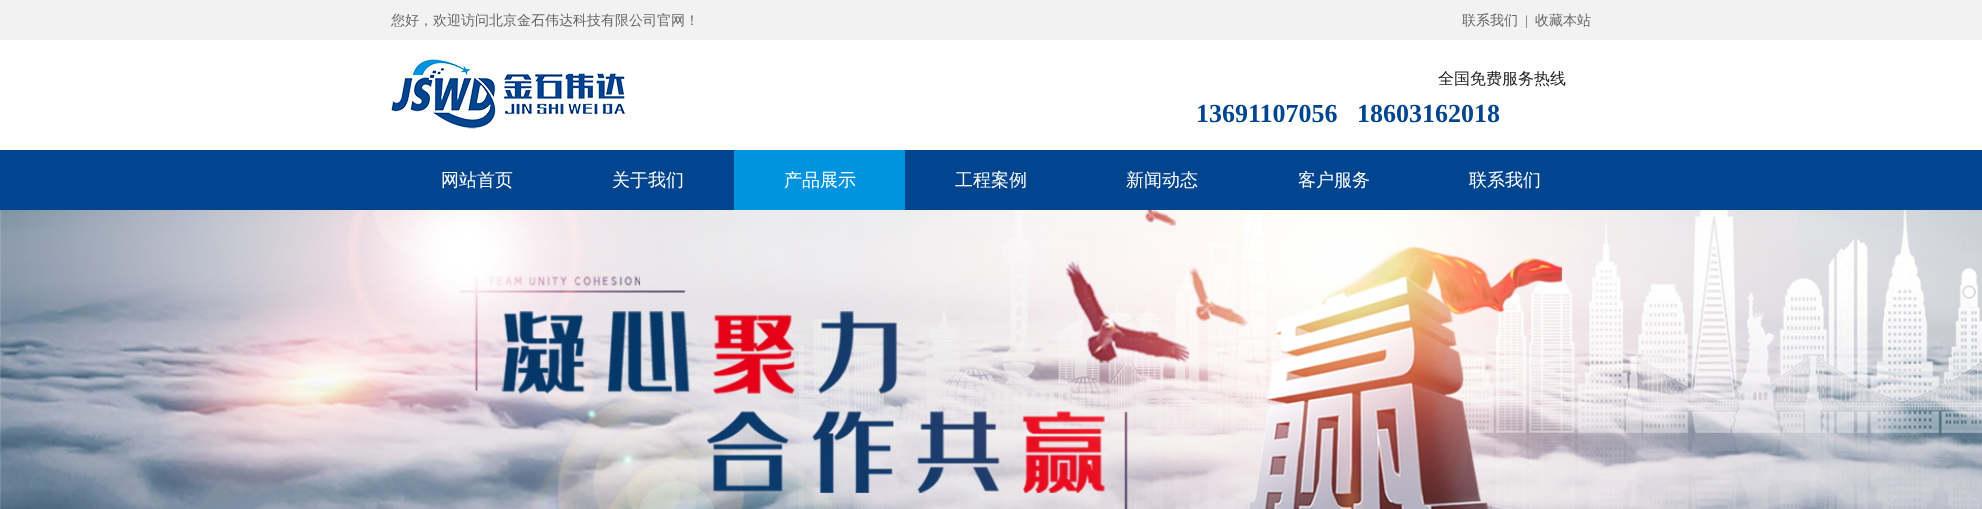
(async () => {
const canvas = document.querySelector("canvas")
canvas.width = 1982
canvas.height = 509
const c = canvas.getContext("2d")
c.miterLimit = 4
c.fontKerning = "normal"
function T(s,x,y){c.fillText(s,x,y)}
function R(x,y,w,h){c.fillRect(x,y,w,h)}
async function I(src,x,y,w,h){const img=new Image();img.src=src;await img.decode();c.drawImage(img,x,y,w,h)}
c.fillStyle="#fff"
R(0,0,1982,509)
c.fillStyle="#f2f2f2"
R(0,0,1982,40)
c.font="500 14px WenQuanYi Zen Hei"
c.fillStyle="#666"
T("您好，欢迎访问北京金石伟达科技有限公司官网！",391,25)
T("联系我们",1462,25)
c.font="14px Liberation Serif"
T("|",1525,25)
c.font="500 14px WenQuanYi Zen Hei"
T("收藏本站",1535,25)
await I("1.png",391,59,235,70)
c.font="500 16px WenQuanYi Zen Hei"
c.fillStyle="#222"
T("全国免费服务热线",1438,84)
c.font="bold 26px Liberation Serif"
c.fillStyle="#01458f"
T("13691107056   18603162018",1196,122)
R(0,150,1982,60)
c.font="500 18px WenQuanYi Zen Hei"
c.fillStyle="#fff"
T("网站首页",441,186)
T("关于我们",612,186)
c.fillStyle="#0094de"
R(734,150,171,60)
c.fillStyle="#fff"
T("产品展示",784,186)
T("工程案例",955,186)
T("新闻动态",1126,186)
T("客户服务",1298,186)
T("联系我们",1469,186)
await I("2.png",0,210,1982,299)
})()
